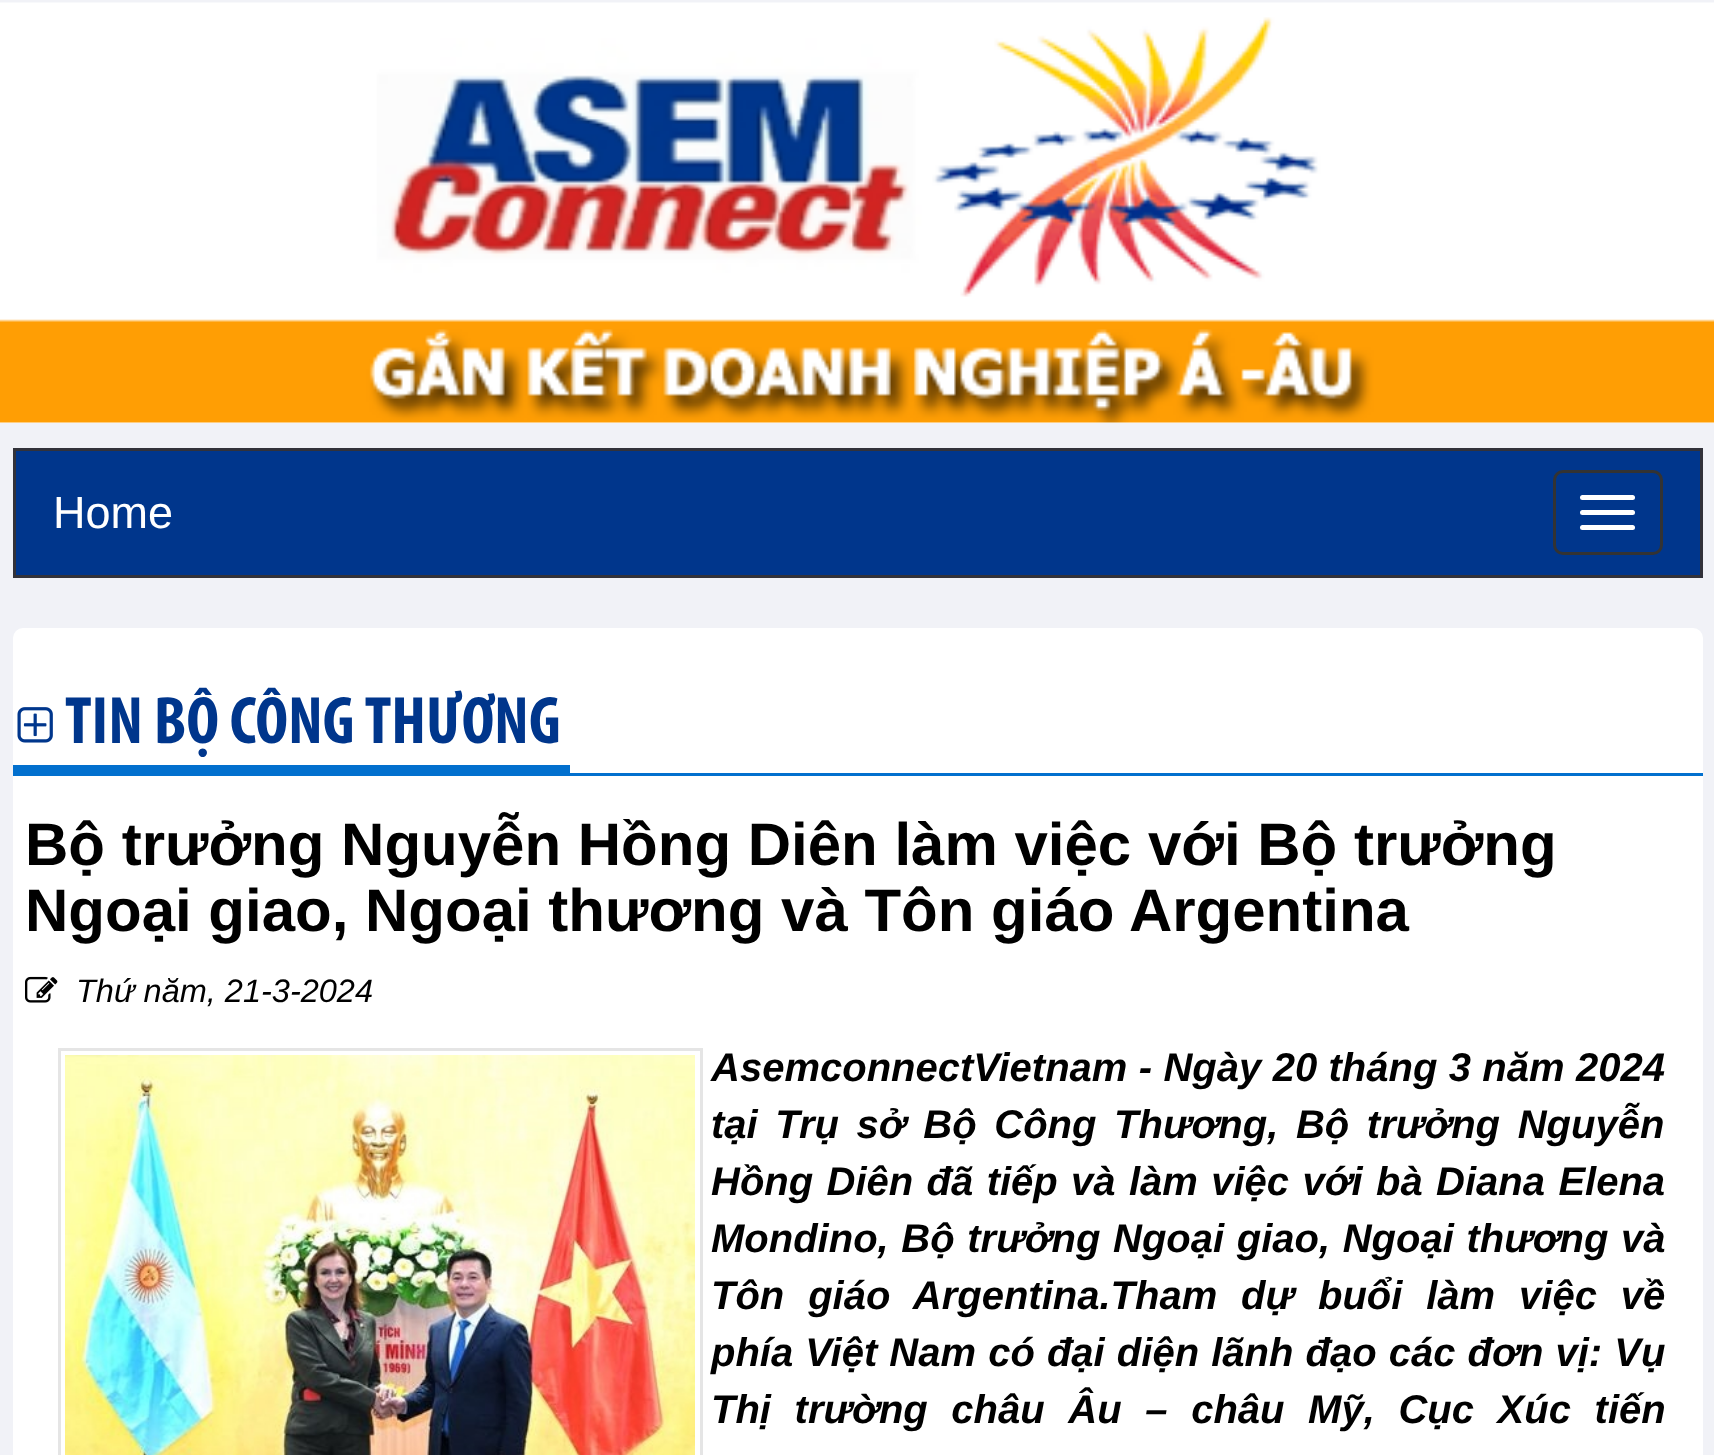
(async () => {
const canvas = document.querySelector("canvas")
canvas.width = 1714
canvas.height = 1455
const c = canvas.getContext("2d")
c.miterLimit = 4
c.fontKerning = "normal"
function T(s,x,y){c.fillText(s,x,y)}
function R(x,y,w,h){c.fillRect(x,y,w,h)}
function Q(x,y,w,h,r){c.beginPath();c.roundRect(x,y,w,h,r);c.fill()}
async function I(src,x,y,w,h){const img=new Image();img.src=src;await img.decode();c.drawImage(img,x,y,w,h)}
c.fillStyle="#f1f2f7"
R(0,0,1714,1455)
c.fillStyle="#fff"
R(0,422,1714,1)
await I("1.png",0,2,1714,421)
c.fillStyle="#00368c"
c.beginPath()
c.rect(14.5,449.5,1687,127)
c.fill()
c.strokeStyle="#32323a"
c.lineWidth=3
c.stroke()
c.font="45px Liberation Sans"
c.fillStyle="#fff"
T("Home",53,528)
c.beginPath()
c.roundRect(1554.5,471.5,107,82,8.5)
c.strokeStyle="#333"
c.stroke()
Q(1580,495,55,5,2.5)
Q(1580,510,55,5,2.5)
Q(1580,525,55,5,2.5)
Q(13,628,1690,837,10)
c.fillStyle="#0270ce"
R(13,773,1690,3)
R(13,765,557,8)
await I("2.png",17,707,36,36)
c.font="bold 67.5px Myriad"
c.fillStyle="#00368c"
T("TIN BỘ CÔNG THƯƠNG",65,743)
c.font="bold 60px Liberation Sans"
c.fillStyle="#000"
T("Bộ trưởng Nguyễn Hồng Diên làm việc với Bộ trưởng",25,865)
T("Ngoại giao, Ngoại thương và Tôn giáo Argentina",25,931)
await I("3.png",25,976,33,27)
c.font="italic 32.5px Liberation Sans"
T("Thứ năm, 21-3-2024",76,1002)
c.strokeStyle="#e5e5e5"
c.strokeRect(59.5,1049.5,642,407)
await I("4.png",65,1055,630,400)
c.wordSpacing="0.25px"
c.font="italic bold 40px Liberation Sans"
T("AsemconnectVietnam - Ngày 20 tháng 3 năm 2024",711,1081)
c.wordSpacing="6.5px"
T("tại Trụ sở Bộ Công Thương, Bộ trưởng Nguyễn",711,1138)
c.wordSpacing="2.25px"
T("Hồng Diên đã tiếp và làm việc với bà Diana Elena",711,1195)
c.wordSpacing="1.5px"
T("Mondino, Bộ trưởng Ngoại giao, Ngoại thương và",711,1252)
c.wordSpacing="12.75px"
T("Tôn giáo Argentina.Tham dự buổi làm việc về",711,1309)
c.wordSpacing="1px"
T("phía Việt Nam có đại diện lãnh đạo các đơn vị: Vụ",711,1366)
c.wordSpacing="12.5px"
T("Thị trường châu Âu – châu Mỹ, Cục Xúc tiến",711,1423)
})()
